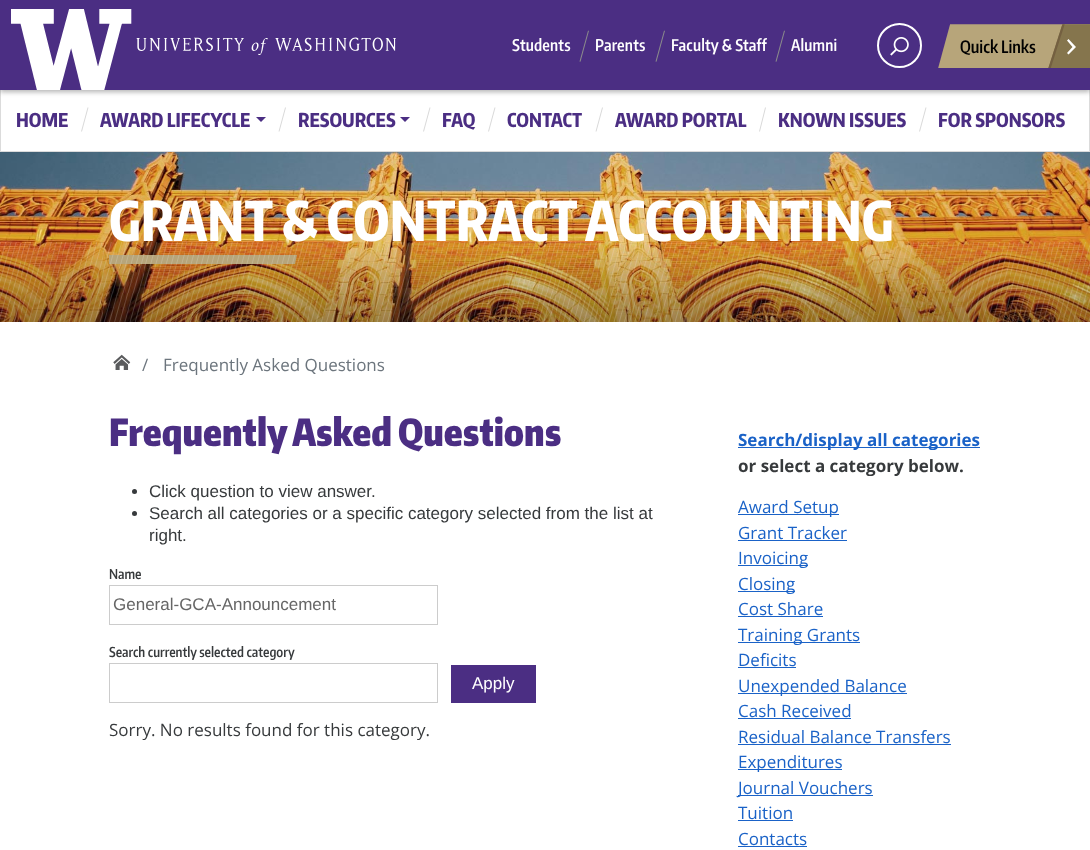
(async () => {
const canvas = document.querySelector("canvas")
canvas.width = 1090
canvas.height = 850
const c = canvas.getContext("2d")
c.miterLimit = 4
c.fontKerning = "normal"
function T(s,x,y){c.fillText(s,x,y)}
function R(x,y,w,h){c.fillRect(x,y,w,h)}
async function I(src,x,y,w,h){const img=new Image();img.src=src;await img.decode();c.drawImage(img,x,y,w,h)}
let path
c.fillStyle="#fff"
R(0,0,1090,850)
c.fillStyle="#dbdbdb"
path = new Path2D("M1090 90v62l-1-1v-61z")
c.fill(path)
c.fillStyle="#00000024"
path = new Path2D("M1090 152h-1090l1-1h1088z")
c.fill(path)
path = new Path2D("M0 152v-62h1v61z")
c.fill(path)
c.fillStyle="#0000004d"
c.filter="blur(2.5px)"
c.beginPath()
c.rect(0,2,1090,90)
c.fill()
c.filter="none"
c.fillStyle="#4b2e83"
R(0,0,1090,90)
await I("1.png",11,9,121,81)
await I("2.png",136,37,260,18)
c.letterSpacing="0.2px"
c.font="600 16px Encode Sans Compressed"
c.fillStyle="#fff"
T("Students",512,51)
await I("3.png",579,30,10,32)
T("Parents",595,51)
await I("3.png",655,30,10,32)
T("Faculty & Staff",671,51)
await I("3.png",775,30,10,32)
T("Alumni",791,51)
c.beginPath()
c.arc(899.5,45.5,21.5,0,7)
c.strokeStyle="#fff"
c.lineWidth=2
c.stroke()
await I("4.png",890,37,19,19)
await I("5.png",938,24,152,44)
c.letterSpacing="0px"
c.font="600 17px Encode Sans Compressed"
c.fillStyle="#000"
T("Quick Links",960,53)
c.fillStyle="#fff"
path = new Path2D("M1076 47l-7.5-8l-1.5 1.5l5.5 6.5l-5.5 6l1.5 1.5z")
c.fill(path)
c.font="800 19px Encode Sans Compressed"
c.fillStyle="#4b2e83"
T("HOME",16,127)
c.fillStyle="#d9d9d9"
path = new Path2D("M87.5 107.5h1l-6.5 24h-1z")
c.fill(path)
c.fillStyle="#4b2e83"
T("AWARD LIFECYCLE",100,127)
path = new Path2D("M256 117h10l-5 5z")
c.fill(path)
c.fillStyle="#d9d9d9"
path = new Path2D("M285 107.5h1l-6.5 24h-1z")
c.fill(path)
c.fillStyle="#4b2e83"
T("RESOURCES",298,127)
path = new Path2D("M400 117h10l-5 5z")
c.fill(path)
c.fillStyle="#d9d9d9"
path = new Path2D("M429.5 107.5h1l-6.5 24h-1z")
c.fill(path)
c.fillStyle="#4b2e83"
T("FAQ",442,127)
c.fillStyle="#d9d9d9"
path = new Path2D("M494.5 107.5h1l-6.5 24h-1z")
c.fill(path)
c.fillStyle="#4b2e83"
T("CONTACT",507,127)
c.fillStyle="#d9d9d9"
path = new Path2D("M602 107.5h1l-6.5 24h-1z")
c.fill(path)
c.fillStyle="#4b2e83"
T("AWARD PORTAL",615,127)
c.fillStyle="#d9d9d9"
path = new Path2D("M765 107.5h1l-6 24h-1z")
c.fill(path)
c.fillStyle="#4b2e83"
T("KNOWN ISSUES",778,127)
c.fillStyle="#d9d9d9"
path = new Path2D("M925.5 107.5h1l-6.5 24h-1z")
c.fill(path)
c.fillStyle="#4b2e83"
T("FOR SPONSORS",938,127)
await I("6.png",0,152,1090,170)
c.font="800 54.4px Encode Sans Compressed"
c.fillStyle="#fff"
T("GRANT & CONTRACT ACCOUNTING",109,241)
c.save()
c.beginPath()
c.rect(109,255,872,10)
c.clip()
c.fillStyle="#b7a57a"
path = new Path2D("M105 255h192l-2 9h-192z")
c.fill(path)
c.restore()
await I("7.png",0,242,1090,80)
await I("8.png",113,354,18,16)
c.font="17px Open Sans"
c.fillStyle="#6c757d"
T("/",142,371)
T("Frequently Asked Questions",163,371)
c.font="900 37px Encode Sans Compressed"
c.fillStyle="#4b2e83"
T("Frequently Asked Questions",109,446)
c.fillStyle="#373a3c"
c.beginPath()
c.arc(134.5,491.5,2.5,0,7)
c.fill()
c.font="17px Liberation Sans"
T("Click question to view answer.",149,497)
c.beginPath()
c.arc(134.5,513.5,2.5,0,7)
c.fill()
T("Search all categories or a specific category selected from the list at",149,519)
T("right.",149,541)
c.font="600 13.6px Encode Sans Compressed"
T("Name",109,579)
c.strokeStyle="#ccc"
c.lineWidth=1
c.strokeRect(109.5,585.5,328,39)
c.font="17px Liberation Sans"
c.fillStyle="#666"
T("General-GCA-Announcement",113,610)
c.font="600 13.6px Encode Sans Compressed"
c.fillStyle="#373a3c"
T("Search currently selected category",109,657)
c.strokeRect(109.5,663.5,328,39)
c.fillStyle="#4b2e83"
R(451,665,85,38)
c.font="17px Liberation Sans"
c.fillStyle="#fff"
T("Apply",472,689)
c.font="17px Open Sans"
c.fillStyle="#373a3c"
T("Sorry. No results found for this category.",109,736)
c.fillStyle="#1a62c7"
R(738,447,242,1)
c.font="bold 17px Open Sans"
T("Search/display all categories",738,446)
c.fillStyle="#373a3c"
T("or select a category below.",738,472)
c.fillStyle="#1a62c7"
R(738,514,101,1)
c.font="17px Open Sans"
T("Award Setup",738,513)
T("Grant Tracker",738,539)
R(738,540,109,1)
R(738,565,70,1)
T("Invoicing",738,564)
R(738,591,57,1)
T("Closing",738,590)
T("Cost Share",738,615)
R(738,616,85,1)
R(738,642,122,1)
T("Training Grants",738,641)
T("Deficits",738,666)
R(738,667,58,1)
R(738,693,169,1)
T("Unexpended Balance",738,692)
T("Cash Received",738,717)
R(738,718,113,1)
T("Residual Balance Transfers",738,743)
R(738,744,213,1)
R(738,769,104,1)
T("Expenditures",738,768)
R(738,795,135,1)
T("Journal Vouchers",738,794)
T("Tuition",738,819)
R(738,820,55,1)
T("Contacts",738,845)
R(738,846,69,1)
})()
